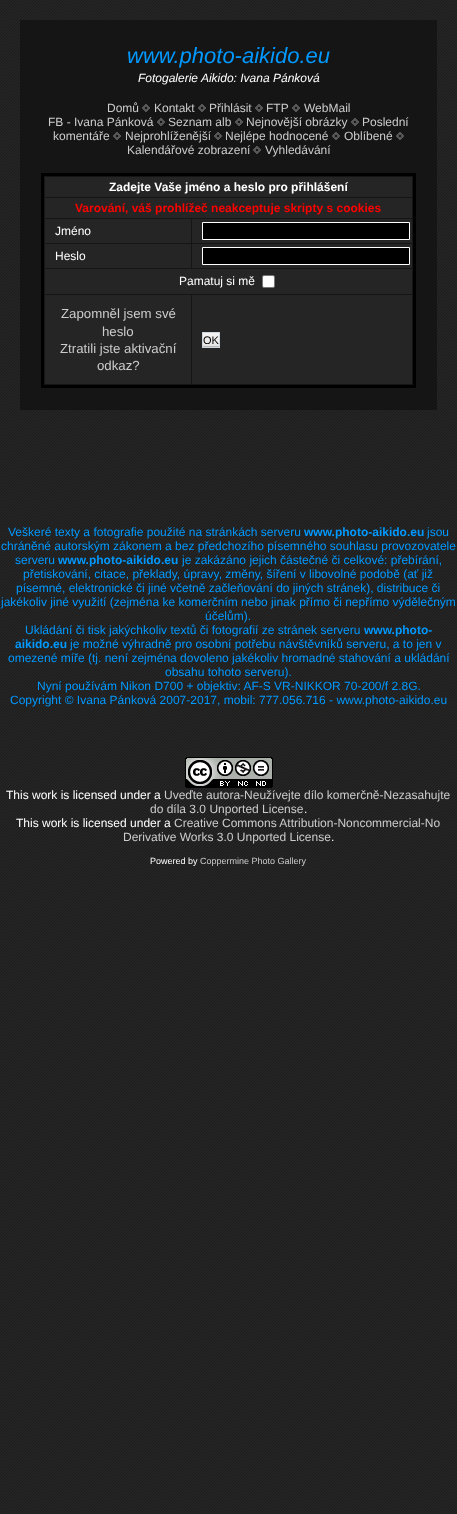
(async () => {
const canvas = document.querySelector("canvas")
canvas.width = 457
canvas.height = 1514
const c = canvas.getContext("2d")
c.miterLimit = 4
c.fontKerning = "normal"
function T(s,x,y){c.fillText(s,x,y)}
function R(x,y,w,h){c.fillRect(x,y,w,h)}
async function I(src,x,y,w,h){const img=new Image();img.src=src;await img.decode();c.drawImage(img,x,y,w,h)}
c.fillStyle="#fff"
R(0,0,457,1514)
await I("1.png",0,0,457,1514)
c.fillStyle="#151515"
R(20,20,417,390)
c.font="italic 22px Liberation Sans"
c.fillStyle="#09f"
T("www.photo-aikido.eu",127,63)
c.font="italic 12px Liberation Sans"
c.fillStyle="#fff"
T("Fotogalerie Aikido: Ivana Pánková",138,82)
c.font="12px Liberation Sans"
c.fillStyle="#ccc"
T("Domů",107,112)
await I("2.png",142,104,8,8)
T("Kontakt",154,112)
await I("2.png",198,104,8,8)
T("Přihlásit",209,112)
await I("2.png",255,104,8,8)
T("FTP",266,112)
await I("2.png",292,104,8,8)
T("WebMail",304,112)
T("FB - Ivana Pánková",48,126)
await I("2.png",157,118,8,8)
T("Seznam alb",168,126)
await I("2.png",235,118,8,8)
T("Nejnovější obrázky",246,126)
await I("2.png",351,118,8,8)
T("Poslední",362,126)
T("komentáře",53,140)
await I("2.png",113,132,8,8)
T("Nejprohlíženější",125,140)
await I("2.png",214,132,8,8)
T("Nejlépe hodnocené",225,140)
await I("2.png",332,132,8,8)
T("Oblíbené",344,140)
await I("2.png",396,132,8,8)
T("Kalendářové zobrazení",127,154)
await I("2.png",253,146,8,8)
T("Vyhledávání",265,154)
c.strokeStyle="#000"
c.lineWidth=3
c.strokeRect(42.5,174.5,372,212)
c.fillStyle="#252525"
R(45,177,367,20)
c.font="bold 12px Liberation Sans"
c.fillStyle="#fff"
T("Zadejte Vaše jméno a heslo pro přihlášení",109,191)
c.fillStyle="#252525"
R(45,198,367,20)
c.fillStyle="#f00"
T("Varování, váš prohlížeč neakceptuje skripty s cookies",75,212)
c.fillStyle="#252525"
R(45,219,146,24)
c.font="12px Liberation Sans"
c.fillStyle="#fff"
T("Jméno",55,235)
c.fillStyle="#252525"
R(192,219,220,24)
c.fillStyle="#000"
c.beginPath()
c.rect(202.5,222.5,207,17)
c.fill()
c.strokeStyle="#fff"
c.lineWidth=1
c.stroke()
c.fillStyle="#252525"
R(45,244,146,24)
c.fillStyle="#fff"
T("Heslo",55,260)
c.fillStyle="#252525"
R(192,244,220,24)
c.fillStyle="#000"
c.beginPath()
c.rect(202.5,247.5,207,17)
c.fill()
c.stroke()
c.fillStyle="#252525"
R(45,269,367,25)
c.fillStyle="#fff"
T("Pamatuj si mě",179,285)
c.beginPath()
c.roundRect(262.5,275.5,12,12,1.5)
c.fill()
c.strokeStyle="#767676"
c.stroke()
c.fillStyle="#252525"
R(45,295,146,89)
c.font="13.25px Liberation Sans"
c.fillStyle="#ccc"
T("Zapomněl jsem své",61,318)
T("heslo",102,336)
T("Ztratili jste aktivační",60,353)
T("odkaz?",97,370)
c.fillStyle="#252525"
R(192,295,220,89)
await I("3.png",203,333,16,14)
c.strokeStyle="#ccd7e0"
c.strokeRect(202.5,332.5,17,15)
c.font="11px Liberation Sans"
c.fillStyle="#000"
T("OK",203,344)
c.font="12px Liberation Sans"
c.fillStyle="#09f"
T("Veškeré texty a fotografie použité na stránkách serveru",8,536)
c.font="bold 12px Liberation Sans"
T("www.photo-aikido.eu",304,536)
c.font="12px Liberation Sans"
T("jsou",427,536)
T("chráněné autorským zákonem a bez předchozího písemného souhlasu provozovatele",1,550)
T("serveru",15,564)
c.font="bold 12px Liberation Sans"
T("www.photo-aikido.eu",58,564)
c.font="12px Liberation Sans"
T("je zakázáno jejich částečné či celkové: přebírání,",182,564)
T("přetiskování, citace, překlady, úpravy, změny, šíření v libovolné podobě (ať již",23,578)
T("písemné, elektronické či jiné včetně začleňování do jiných stránek), distribuce či",16,592)
T("jakékoliv jiné využití (zejména ke komerčním nebo jinak přímo či nepřímo výdělečným",1,606)
T("účelům).",205,620)
T("Ukládání či tisk jakýchkoliv textů či fotografií ze stránek serveru",25,634)
c.font="bold 12px Liberation Sans"
T("www.photo-",364,634)
T("aikido.eu",15,648)
c.font="12px Liberation Sans"
T("je možné výhradně pro osobní potřebu návštěvníků serveru, a to jen v",70,648)
T("omezené míře (tj. není zejména dovoleno jakékoliv hromadné stahování a ukládání",8,662)
T("obsahu tohoto serveru).",165,676)
T("Nyní používám Nikon D700 + objektiv: AF-S VR-NIKKOR 70-200/f 2.8G.",37,690)
T("Copyright © Ivana Pánková 2007-2017, mobil: 777.056.716 - www.photo-aikido.eu",10,704)
await I("4.png",185,757,88,31)
c.fillStyle="#fff"
T("This work is licensed under a",6,799)
c.fillStyle="#ccc"
T("Uveďte autora-Neužívejte dílo komerčně-Nezasahujte",164,799)
T("do díla 3.0 Unported License",150,813)
c.fillStyle="#fff"
T(".",304,813)
T("This work is licensed under a",16,827)
c.fillStyle="#ccc"
T("Creative Commons Attribution-Noncommercial-No",174,827)
T("Derivative Works 3.0 Unported License",123,841)
c.fillStyle="#fff"
T(".",331,841)
c.font="9px Liberation Sans"
T("Powered by",150,864)
c.fillStyle="#ccc"
T("Coppermine Photo Gallery",200,864)
})()
